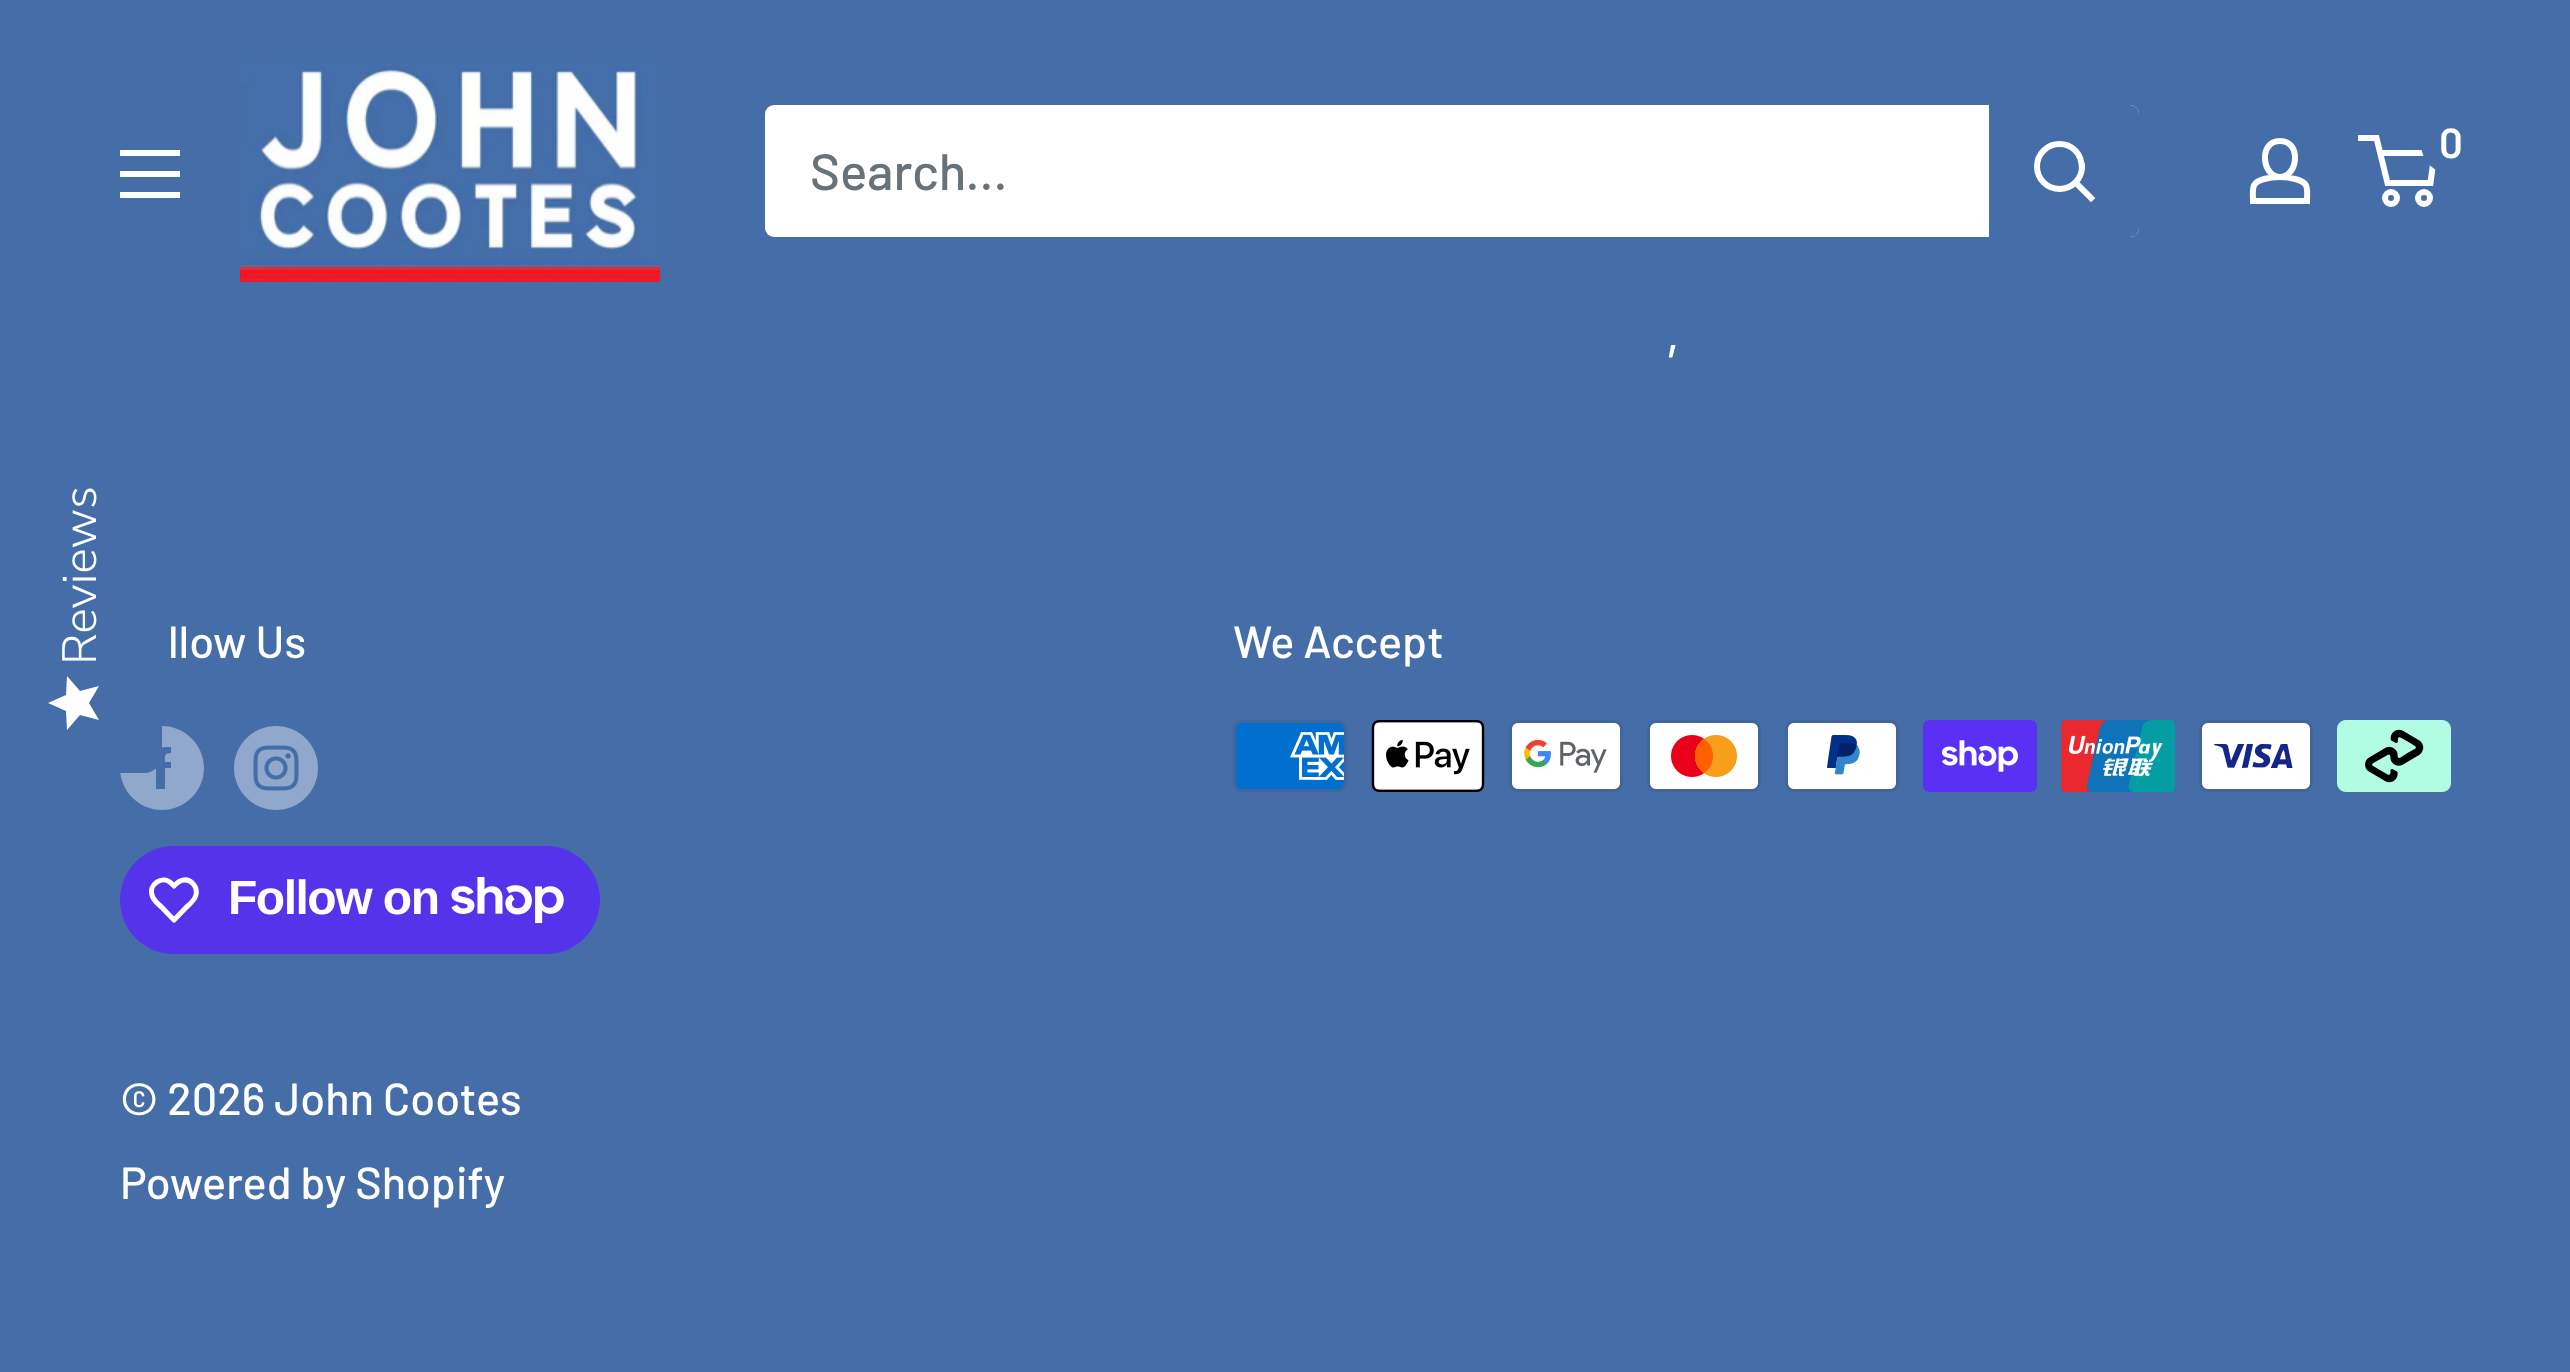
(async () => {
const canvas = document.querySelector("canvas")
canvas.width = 2570
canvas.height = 1372
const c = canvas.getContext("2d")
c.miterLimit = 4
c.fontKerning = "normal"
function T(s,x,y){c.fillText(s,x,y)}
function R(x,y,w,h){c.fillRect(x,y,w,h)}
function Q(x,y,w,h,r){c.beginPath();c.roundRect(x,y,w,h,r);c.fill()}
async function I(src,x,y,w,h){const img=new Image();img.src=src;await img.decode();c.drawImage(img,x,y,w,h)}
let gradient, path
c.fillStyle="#456ea8"
R(0,0,2570,1372)
await I("1.png",240,60,420,222)
path = new Path2D("M2280 177c5.5 0 11.5 1 17 2.5c12.5 3.5 10 10 10 21.5h-54c0-12-2.5-18.5 11-22c5.5-1.5 10.5-2 16-2zm0 0c-18 0-22-36 0-36c22 0 18 36 0 36z")
c.strokeStyle="#fff"
c.lineWidth=6
c.stroke(path)
c.beginPath()
c.arc(2391,198,6,0,7)
c.stroke()
c.beginPath()
c.arc(2424,198,6,0,7)
c.stroke()
path = new Path2D("M2380 153h54.5l-4 30h-43l-11-45h-18.5")
c.stroke(path)
c.beginPath()
c.arc(2451,144,30,0,7)
c.fill()
c.font="600 42px Barlow"
c.fillStyle="#fff"
T("0",2439,158)
path = new Path2D("M120 192h60v6h-60zm0-42h60v6h-60zm0 21h60v6h-60z")
c.fill(path,"evenodd")
Q(765,105,1374,132,9)
c.font="500 51px Barlow"
c.fillStyle="#677279"
T("Search...",810,190)
c.fillStyle="#456ea8"
c.beginPath()
c.roundRect(1989,105,150,132,[0,9,9,0])
c.fill()
path = new Path2D("M2091 198l-15-15")
c.lineCap="square"
c.stroke(path)
c.beginPath()
c.arc(2059.5,166.5,22.5,0,7)
c.stroke()
c.fillStyle="#8fa8cb"
path = new Path2D("M162 810c-23 0-42-19-42-42c0-23 19-42 42-42c23 0 42 19 42 42c0 23-19 42-42 42zm9-48h-6c0-6-1-9 6-9v-6c-14 0-15 2-15 15h-3v6h3v21h9v-21h6z")
c.fill(path,"evenodd")
c.fillStyle="#456ea8"
path = new Path2D("M0 773v-334h144c10 0 18 8 18 18v298c0 10-8 18-18 18z")
c.fill(path)
c.font="300 48px Nunito Sans"
c.fillStyle="#fff"
c.save()
c.translate(96,665)
c.rotate(-90 * Math.PI / 180)
c.fillText("Reviews",0,0)
c.restore()
gradient = c.createLinearGradient(48,730,48,676)
gradient.addColorStop(1,"#fefefe")
gradient.addColorStop(1,"#eaeaea")
c.fillStyle = gradient
path = new Path2D("M89 703l10-17l-19 5l-13-15l-1 19l-18 8l18 8l1 19l13-15l19 5z")
c.fill(path)
c.font="500 51px Barlow"
c.fillStyle="#fff"
T(",",1666,353)
c.font="500 45px Barlow"
T("llow Us",168,658)
await I("2.png",234,726,84,84)
c.fillStyle="#5433eb"
Q(120,846,480,108,54)
path = new Path2D("M171.5 883.5l2.5 2.5c2-2 4-4.5 7.5-5.5c9-3 17.5 6.5 14 16c-1.5 4-5.5 7.5-9 10.5l-12.5 13l-12.5-13c-3.5-3-7.5-6.5-9-10.5c-5-12 10-22 19-13z")
c.lineWidth=5
c.lineCap="butt"
c.lineJoin="round"
c.stroke(path)
c.letterSpacing="-1.5px"
c.font="bold 48px Liberation Sans"
c.fillStyle="#fff"
T("Follow on",228,914)
await I("3.png",451,877,113,47)
c.letterSpacing="0px"
c.font="500 45px Barlow"
T("We Accept",1233,658)
await I("4.png",1233,720,114,72)
await I("5.png",1371,720,114,72)
await I("6.png",1509,720,114,72)
await I("7.png",1647,720,114,72)
await I("8.png",1785,720,114,72)
await I("9.png",1923,720,114,72)
await I("10.png",2061,720,114,72)
await I("11.png",2199,720,114,72)
await I("12.png",2337,720,114,72)
T("© 2026 John Cootes",120,1115)
T("Powered by Shopify",120,1199)
})()
